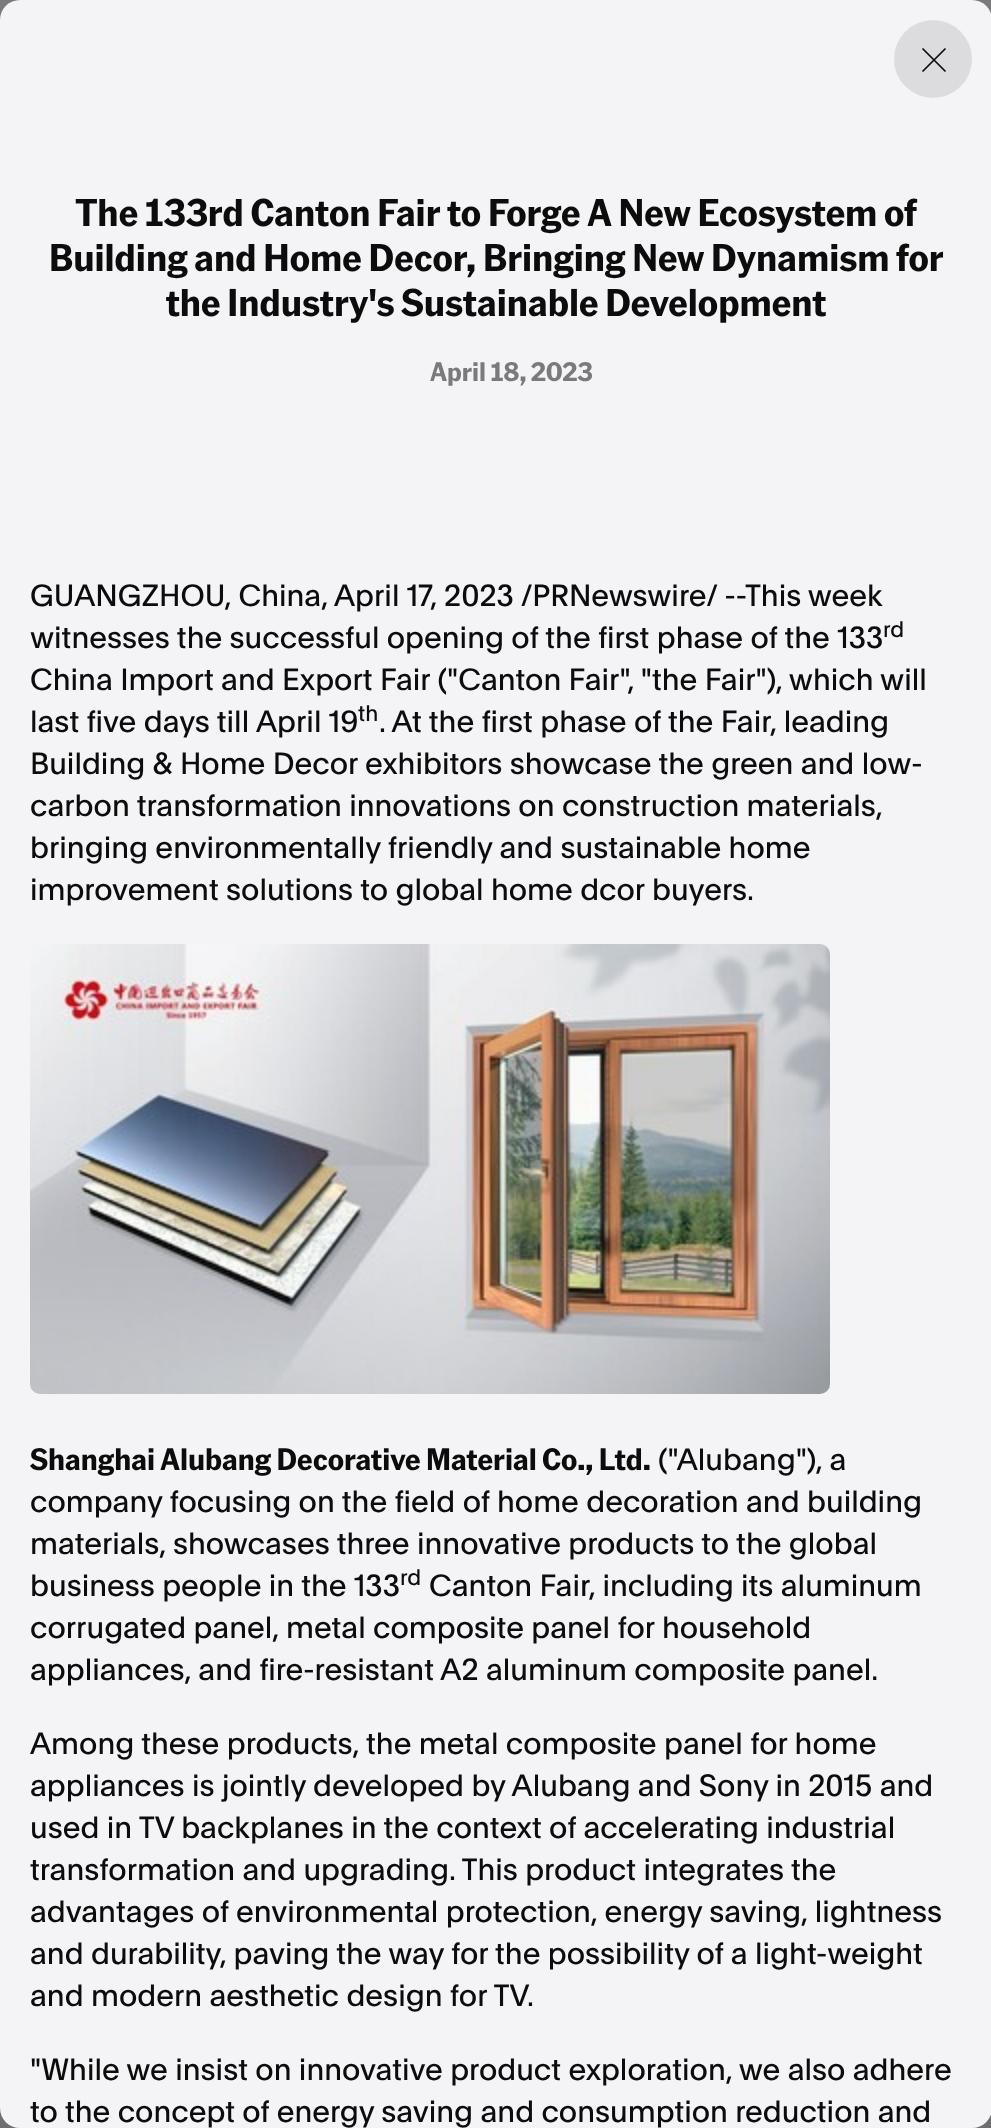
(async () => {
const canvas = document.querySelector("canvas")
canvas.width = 991
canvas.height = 2128
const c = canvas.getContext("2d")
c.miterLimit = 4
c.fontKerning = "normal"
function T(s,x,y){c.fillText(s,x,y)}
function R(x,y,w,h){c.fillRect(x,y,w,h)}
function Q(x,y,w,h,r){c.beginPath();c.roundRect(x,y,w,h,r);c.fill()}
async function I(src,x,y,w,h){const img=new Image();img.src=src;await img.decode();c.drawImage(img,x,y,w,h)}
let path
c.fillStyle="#7a7a7c"
R(0,0,991,2128)
c.fillStyle="#6e6e6f"
R(0,2108,991,20)
c.fillStyle="#f4f4f7"
Q(0,0,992,2128,20)
c.fillStyle="#dcdcde"
c.beginPath()
c.arc(933,59,39,0,7)
c.fill()
path = new Path2D("M945.5 48.5l-23 23m23 0l-23-23")
c.strokeStyle="#0c0c0c"
c.lineWidth=1.7
c.lineJoin="round"
c.stroke(path)
c.font="bold 37.5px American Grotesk"
c.fillStyle="#0c0c0c"
T("The 133rd Canton Fair to Forge A New Ecosystem of",75,226)
T("Building and Home Decor, Bringing New Dynamism for",49,271)
T("the Industry's Sustainable Development",166,316)
c.font="bold 26px American Grotesk"
c.fillStyle="#7a7a7c"
T("April 18, 2023",430,381)
c.font="30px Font"
c.fillStyle="#0c0c0c"
T("GUANGZHOU, China,",30,606)
T("April 17, 2023",334,606)
T("/PRNewswire/ --This week",521,606)
T("witnesses the successful opening of the first phase of the 133",30,648)
c.font="22px Font"
T("rd",883,637)
c.font="30px Font"
T("China Import and Export Fair (\"Canton Fair\", \"the Fair\"), which will",30,690)
T("last five days till",30,732)
T("April 19",256,732)
c.font="22px Font"
T("th",358,721)
c.font="30px Font"
T(". At the first phase of the Fair, leading",379,732)
T("Building & Home Decor exhibitors showcase the green and low-",30,774)
T("carbon transformation innovations on construction materials,",30,816)
T("bringing environmentally friendly and sustainable home",30,858)
T("improvement solutions to global home dcor buyers.",30,900)
await I("1.png",30,944,800,450)
c.font="bold 30px American Grotesk"
T("Shanghai Alubang Decorative Material Co., Ltd.",30,1470)
c.font="30px Font"
T("(\"Alubang\"), a",658,1470)
T("company focusing on the field of home decoration and building",30,1512)
T("materials, showcases three innovative products to the global",30,1554)
T("business people in the 133",30,1596)
c.font="22px Font"
T("rd",400,1585)
c.font="30px Font"
T("Canton Fair, including its aluminum",429,1596)
T("corrugated panel, metal composite panel for household",30,1638)
T("appliances, and fire-resistant A2 aluminum composite panel.",30,1680)
T("Among these products, the metal composite panel for home",30,1754)
T("appliances is jointly developed by Alubang and Sony in 2015 and",30,1796)
T("used in TV backplanes in the context of accelerating industrial",30,1838)
T("transformation and upgrading. This product integrates the",30,1880)
T("advantages of environmental protection, energy saving, lightness",30,1922)
T("and durability, paving the way for the possibility of a light-weight",30,1964)
T("and modern aesthetic design for TV.",30,2006)
T("\"While we insist on innovative product exploration, we also adhere",30,2080)
T("to the concept of energy saving and consumption reduction and",30,2122)
})()
